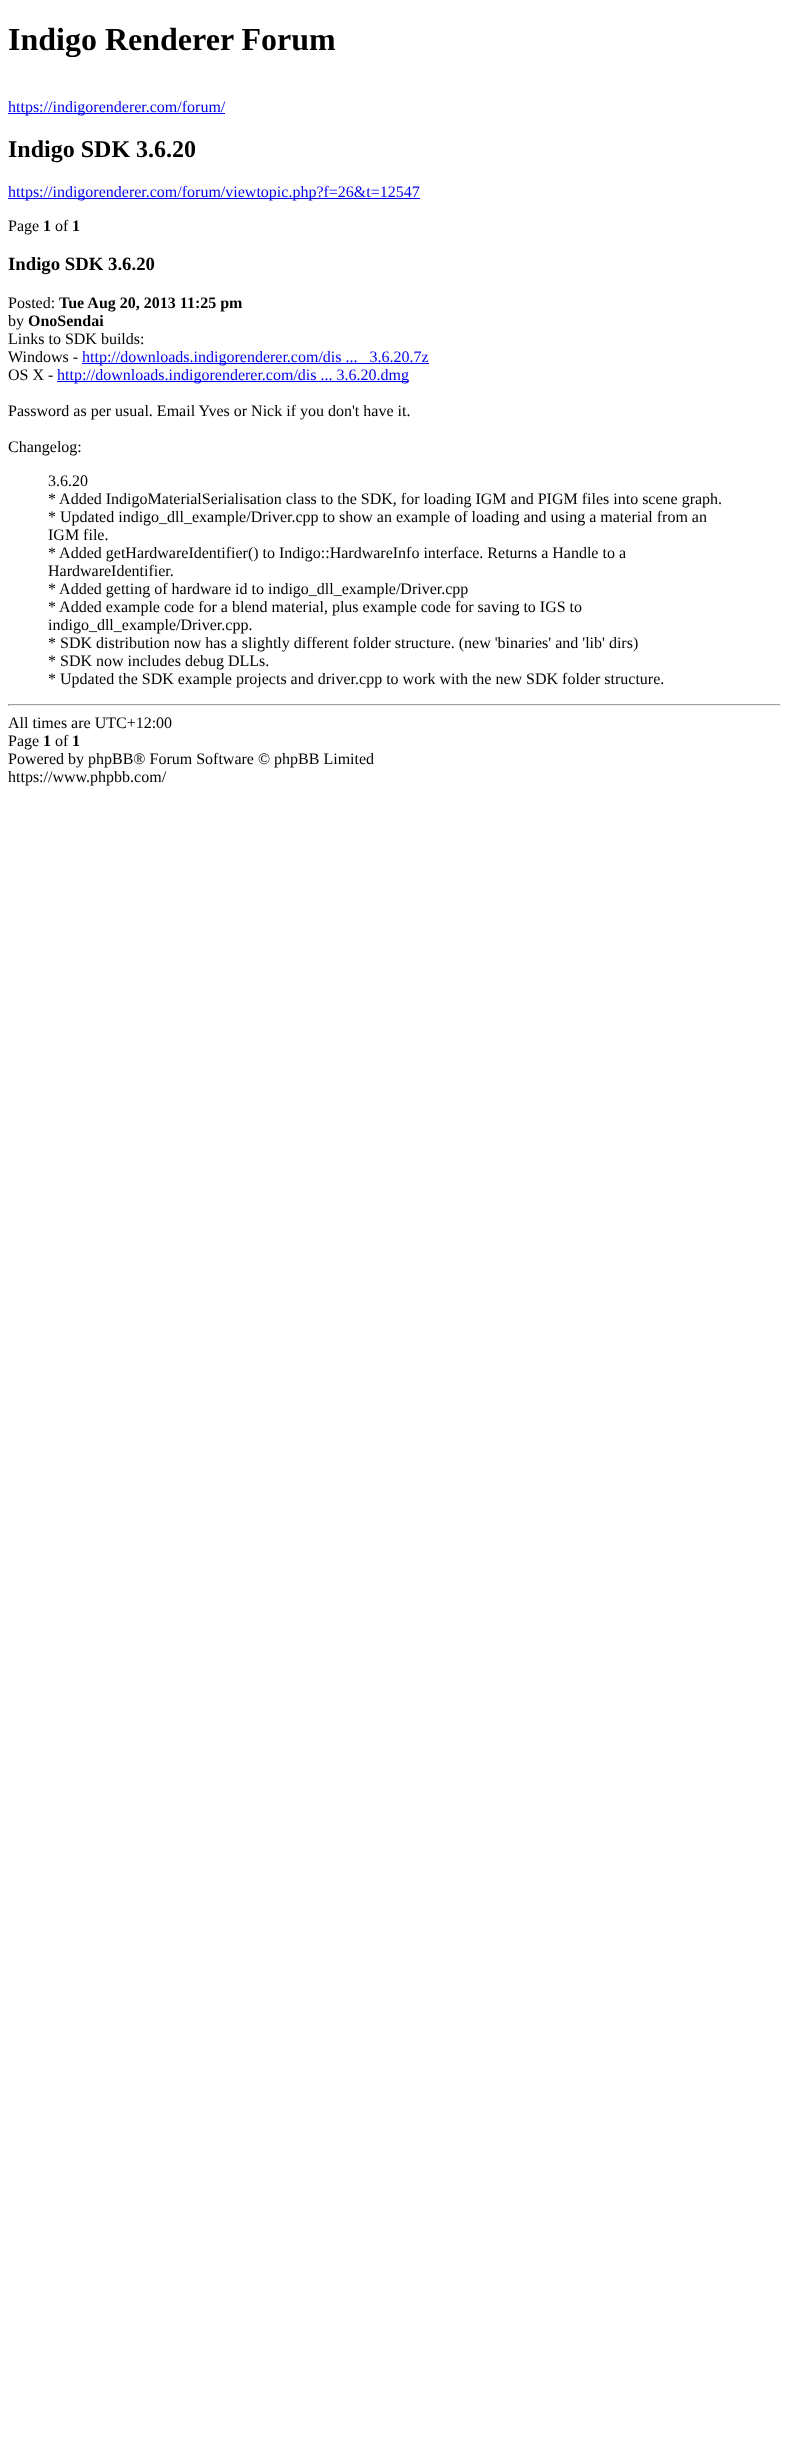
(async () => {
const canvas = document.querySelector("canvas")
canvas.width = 789
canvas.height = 2437
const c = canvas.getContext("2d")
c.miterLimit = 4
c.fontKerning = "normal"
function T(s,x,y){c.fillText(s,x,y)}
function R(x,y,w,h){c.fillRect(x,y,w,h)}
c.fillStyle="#fff"
R(0,0,789,2437)
c.font="bold 32px Liberation Serif"
c.fillStyle="#000"
T("Indigo Renderer Forum",8,50)
c.fillStyle="#00e"
R(8,113,217,1)
c.font="16px Liberation Serif"
T("https://indigorenderer.com/forum/",8,112)
c.font="bold 24px Liberation Serif"
c.fillStyle="#000"
T("Indigo SDK 3.6.20",8,157)
c.fillStyle="#00e"
R(8,198,412,1)
c.font="16px Liberation Serif"
T("https://indigorenderer.com/forum/viewtopic.php?f=26&t=12547",8,197)
c.fillStyle="#000"
T("Page",8,231)
c.font="bold 16px Liberation Serif"
T("1",43,231)
c.font="16px Liberation Serif"
T("of",55,231)
c.font="bold 16px Liberation Serif"
T("1",72,231)
c.font="bold 18.75px Liberation Serif"
T("Indigo SDK 3.6.20",8,270)
c.font="16px Liberation Serif"
T("Posted:",8,308)
c.font="bold 16px Liberation Serif"
T("Tue Aug 20, 2013 11:25 pm",59,308)
c.font="16px Liberation Serif"
T("by",8,326)
c.font="bold 16px Liberation Serif"
T("OnoSendai",28,326)
c.font="16px Liberation Serif"
T("Links to SDK builds:",8,344)
T("Windows -",8,362)
c.fillStyle="#00e"
R(82,363,347,1)
T("http://downloads.indigorenderer.com/dis ... _3.6.20.7z",82,362)
c.fillStyle="#000"
T("OS X -",8,380)
c.fillStyle="#00e"
R(57,381,352,1)
T("http://downloads.indigorenderer.com/dis ... 3.6.20.dmg",57,380)
c.fillStyle="#000"
T("Password as per usual. Email Yves or Nick if you don't have it.",8,416)
T("Changelog:",8,452)
T("3.6.20",48,486)
T("* Added IndigoMaterialSerialisation class to the SDK, for loading IGM and PIGM files into scene graph.",48,504)
T("* Updated indigo_dll_example/Driver.cpp to show an example of loading and using a material from an",48,522)
T("IGM file.",48,540)
T("* Added getHardwareIdentifier() to Indigo::HardwareInfo interface. Returns a Handle to a",48,558)
T("HardwareIdentifier.",48,576)
T("* Added getting of hardware id to indigo_dll_example/Driver.cpp",48,594)
T("* Added example code for a blend material, plus example code for saving to IGS to",48,612)
T("indigo_dll_example/Driver.cpp.",48,630)
T("* SDK distribution now has a slightly different folder structure. (new 'binaries' and 'lib' dirs)",48,648)
T("* SDK now includes debug DLLs.",48,666)
T("* Updated the SDK example projects and driver.cpp to work with the new SDK folder structure.",48,684)
c.fillStyle="#9f9f9f"
R(8,704,773,1)
c.fillStyle="#eee"
R(780,704,1,2)
R(8,705,773,1)
c.fillStyle="#9f9f9f"
R(8,704,1,2)
c.fillStyle="#000"
T("All times are UTC+12:00",8,728)
T("Page",8,746)
c.font="bold 16px Liberation Serif"
T("1",43,746)
c.font="16px Liberation Serif"
T("of",55,746)
c.font="bold 16px Liberation Serif"
T("1",72,746)
c.font="16px Liberation Serif"
T("Powered by phpBB® Forum Software © phpBB Limited",8,764)
T("https://www.phpbb.com/",8,782)
})()
